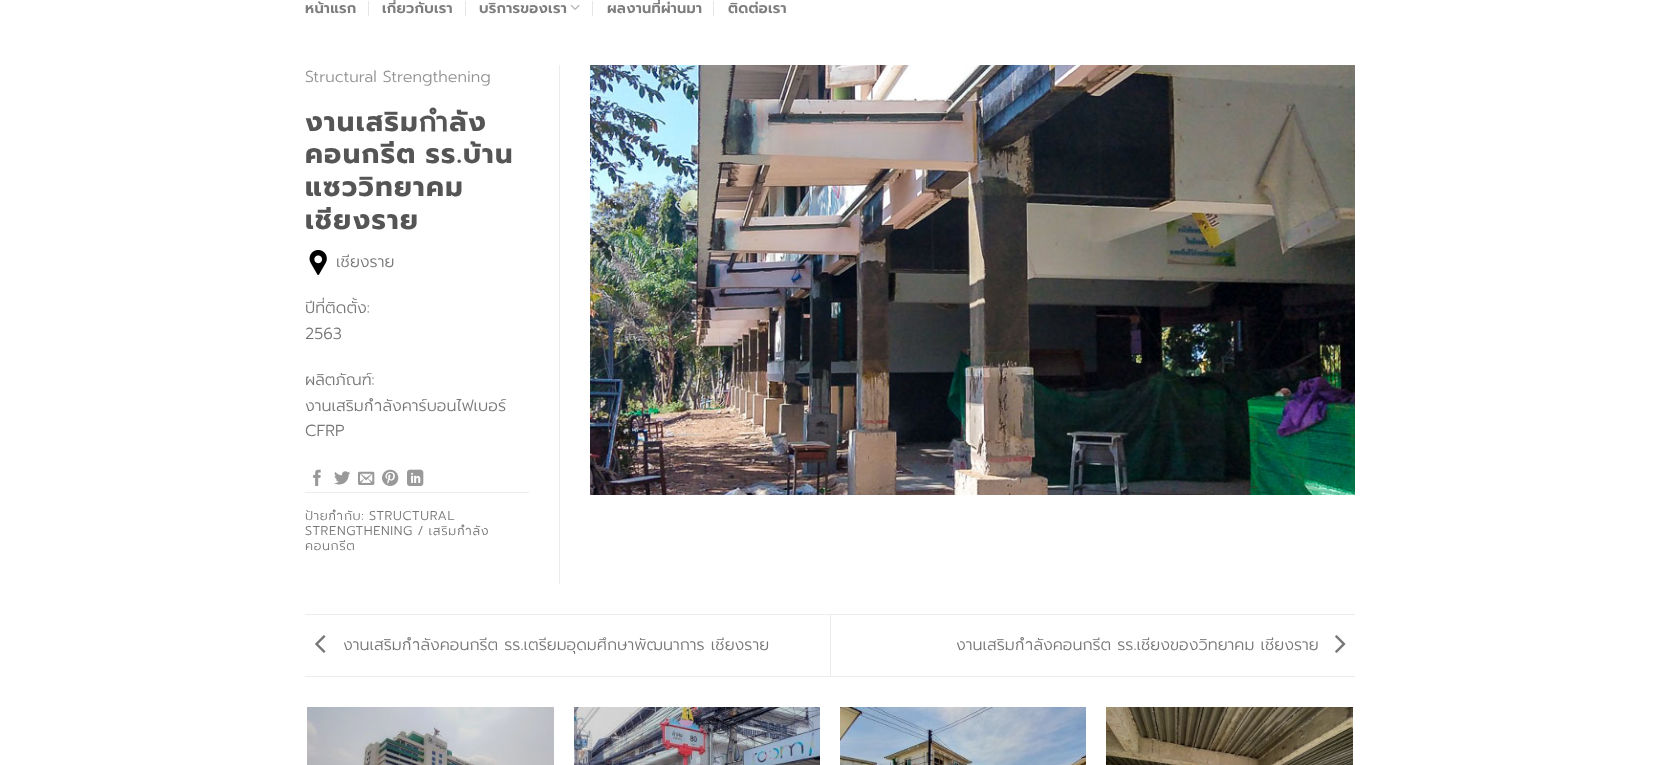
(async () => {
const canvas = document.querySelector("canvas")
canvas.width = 1660
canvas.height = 765
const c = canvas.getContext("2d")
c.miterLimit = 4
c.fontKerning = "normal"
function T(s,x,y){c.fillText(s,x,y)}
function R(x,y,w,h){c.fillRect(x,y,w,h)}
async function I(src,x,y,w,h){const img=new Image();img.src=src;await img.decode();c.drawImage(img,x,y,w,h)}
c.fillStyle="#fff"
R(0,0,1660,765)
c.letterSpacing="0.25px"
c.font="600 14.5px Prompt"
c.fillStyle="#7d7d7d"
T("หน้าแรก",305,13)
c.fillStyle="#e6e6e6"
R(368,1,1,15)
c.fillStyle="#7d7d7d"
T("เกี่ยวกับเรา",382,13)
c.fillStyle="#e6e6e6"
R(465,1,1,15)
c.fillStyle="#7d7d7d"
T("บริการของเรา",479,13)
await I("1.png",570,4,10,6)
c.fillStyle="#e6e6e6"
R(592,1,1,15)
c.fillStyle="#7d7d7d"
T("ผลงานที่ผ่านมา",607,13)
c.fillStyle="#e6e6e6"
R(713,1,1,15)
c.fillStyle="#7d7d7d"
T("ติดต่อเรา",728,13)
c.fillStyle="#ececec"
R(559,65,1,519)
c.letterSpacing="0px"
c.font="300 16px Prompt"
c.fillStyle="#949494"
T("Structural Strengthening",305,82)
c.letterSpacing="1.4px"
c.font="bold 27.25px Prompt"
c.fillStyle="#555"
T("งานเสริมกำลัง",305,131)
c.wordSpacing="-2px"
T("คอนกรีต รร.บ้าน",305,163)
c.wordSpacing="0px"
T("แซววิทยาคม",305,196)
T("เชียงราย",305,229)
await I("2.png",309,250,18,25)
c.letterSpacing="0px"
c.font="300 16px Prompt"
c.fillStyle="#777"
T("เชียงราย",336,267)
T("ปีที่ติดตั้ง:",305,313)
T("2563",305,339)
T("ผลิตภัณฑ์:",305,385)
T("งานเสริมกำลังคาร์บอนไฟเบอร์",305,411)
T("CFRP",305,436)
await I("3.png",313,469,8,17)
await I("4.png",334,471,16,14)
await I("5.png",358,471,17,14)
await I("6.png",382,469,17,17)
await I("7.png",407,469,17,17)
c.fillStyle="#ececec"
R(305,492,224,1)
c.letterSpacing="0.65px"
c.font="300 12.75px Prompt"
c.fillStyle="#777"
T("ป้ายกำกับ:",305,520)
T("STRUCTURAL",369,520)
c.wordSpacing="-1px"
T("STRENGTHENING / เสริมกำลัง",305,535)
c.wordSpacing="0px"
T("คอนกรีต",305,550)
await I("8.png",590,65,765,430)
c.fillStyle="#ececec"
R(305,614,1050,1)
R(305,676,1050,1)
await I("9.png",315,635,11,18)
c.letterSpacing="0px"
c.font="300 16px Prompt"
c.fillStyle="#777"
T("งานเสริมกำลังคอนกรีต รร.เตรียมอุดมศึกษาพัฒนาการ เชียงราย",343,650)
c.fillStyle="#ececec"
R(830,615,1,61)
c.fillStyle="#777"
T("งานเสริมกำลังคอนกรีต รร.เชียงของวิทยาคม เชียงราย",956,650)
await I("10.png",1335,635,11,18)
await I("11.png",307,707,247,58)
await I("12.png",574,707,246,58)
await I("13.png",840,707,246,58)
await I("14.png",1106,707,247,58)
})()
